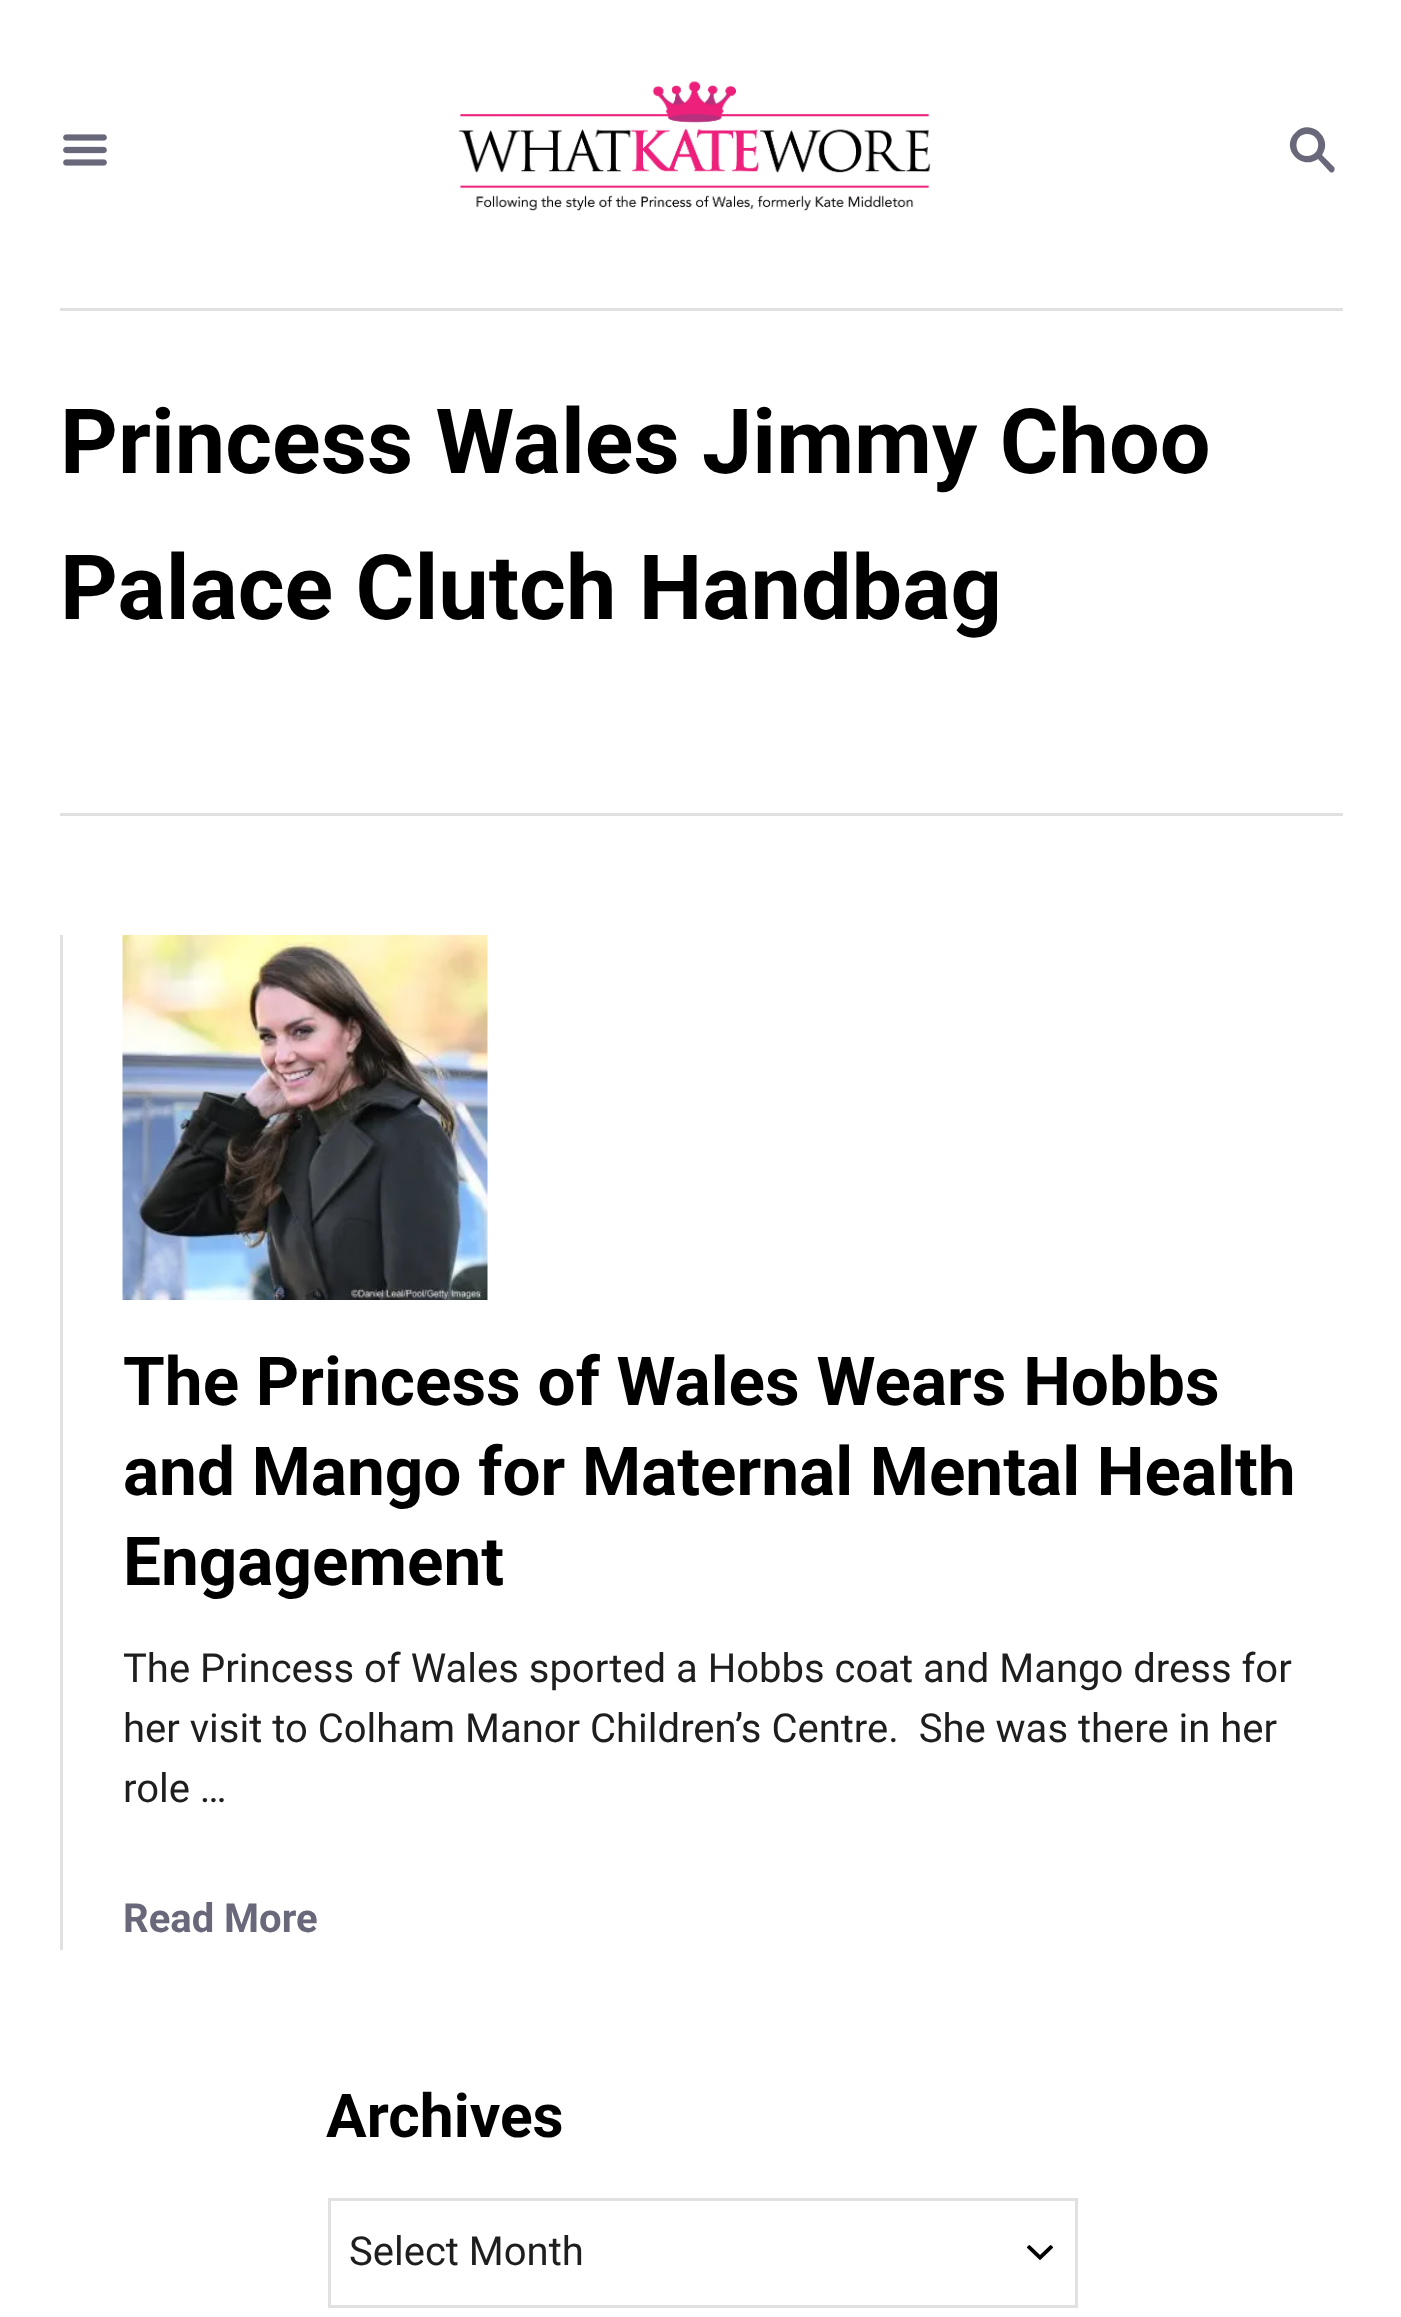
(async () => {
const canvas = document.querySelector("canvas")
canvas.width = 1401
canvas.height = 2317
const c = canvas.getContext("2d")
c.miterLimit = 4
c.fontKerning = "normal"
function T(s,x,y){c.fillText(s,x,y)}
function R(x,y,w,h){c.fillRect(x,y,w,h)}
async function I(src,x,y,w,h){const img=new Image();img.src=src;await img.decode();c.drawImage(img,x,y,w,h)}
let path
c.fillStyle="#fff"
R(0,0,1401,2317)
c.fillStyle="#e1e1e1"
R(60,308,1283,3)
await I("1.png",63,134,44,32)
await I("2.png",459,81,472,130)
c.fillStyle="#68687a"
path = new Path2D("M1334 167l-12-12c12-17-12-38-27-22c-15 15 6 38 23 26l12 13c3 2 6-2 4-5zm-27-11c-14 0-14-22 0-22c15 0 15 22 0 22z")
c.fill(path)
c.fillStyle="#e1e1e1"
R(60,813,1283,3)
c.font="bold 90px Roboto"
c.fillStyle="#000"
T("Princess Wales Jimmy Choo",60,473)
T("Palace Clutch Handbag",60,619)
c.fillStyle="#e1e1e1"
R(60,935,3,1015)
await I("3.png",122,935,366,365)
c.font="bold 67.5px Roboto"
c.fillStyle="#000"
T("The Princess of Wales Wears Hobbs",123,1405)
T("and Mango for Maternal Mental Health",123,1495)
T("Engagement",123,1585)
c.font="40px Roboto"
c.fillStyle="#1e1e1e"
T("The Princess of Wales sported a Hobbs coat and Mango dress for",123,1682)
T("her visit to Colham Manor Children’s Centre.  She was there in her",123,1742)
T("role …",123,1802)
c.font="bold 40px Roboto"
c.fillStyle="#68687a"
T("Read More",123,1932)
c.font="bold 60.5px Roboto"
c.fillStyle="#000"
T("Archives",326,2137)
await I("4.png",1026,2245,28,15)
c.strokeStyle="#e1e1e1"
c.lineWidth=3
c.strokeRect(329.5,2199.5,747,107)
c.font="40px Roboto"
c.fillStyle="#1e1e1e"
T("Select Month",349,2265)
})()
